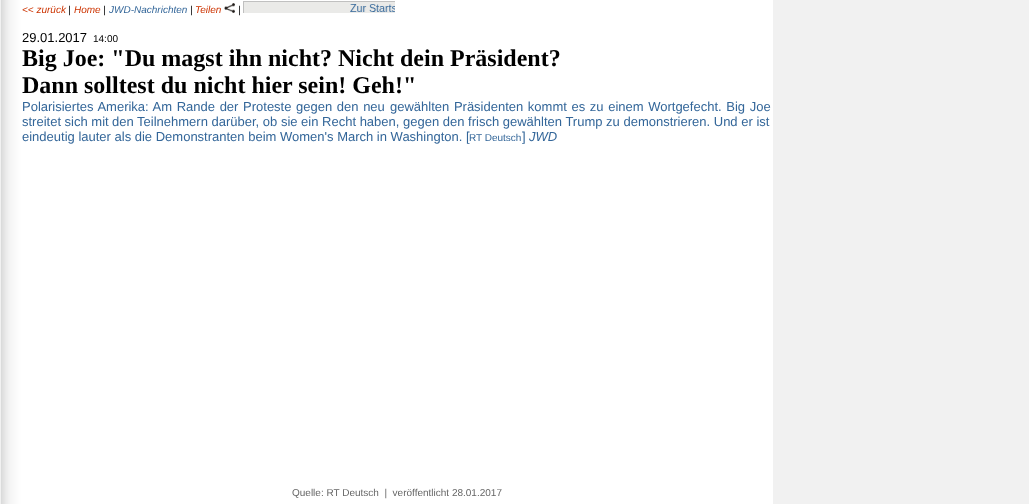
(async () => {
const canvas = document.querySelector("canvas")
canvas.width = 1029
canvas.height = 504
const c = canvas.getContext("2d")
c.miterLimit = 4
c.fontKerning = "normal"
function T(s,x,y){c.fillText(s,x,y)}
function R(x,y,w,h){c.fillRect(x,y,w,h)}
async function I(src,x,y,w,h){const img=new Image();img.src=src;await img.decode();c.drawImage(img,x,y,w,h)}
c.fillStyle="#f1f1f1"
R(0,0,1029,504)
await I("1.png",1,0,20,504)
c.fillStyle="#fff"
R(21,0,752,504)
c.font="italic 10px Liberation Sans"
c.fillStyle="#c30"
T("<< zurück",22,13)
c.fillStyle="#000"
T("|",68,13)
c.fillStyle="#c30"
T("Home",74,13)
c.fillStyle="#000"
T("|",103,13)
c.fillStyle="#369"
T("JWD-Nachrichten",109,13)
c.fillStyle="#000"
T("|",190,13)
c.fillStyle="#c30"
T("Teilen",195,13)
await I("2.png",224,3,11,10)
c.fillStyle="#000"
T("|",238,13)
await I("3.png",243,1,152,12)
c.font="13px Liberation Sans"
T("29.01.2017",22,42)
c.font="10px Liberation Sans"
T("14:00",93,42)
c.font="bold 24px Liberation Serif"
T("Big Joe: \"Du magst ihn nicht? Nicht dein Präsident?",22,66)
T("Dann solltest du nicht hier sein! Geh!\"",22,93)
c.wordSpacing="1px"
c.font="13px Liberation Sans"
c.fillStyle="#369"
T("Polarisiertes Amerika: Am Rande der Proteste gegen den neu",22,111)
T("gewählten Präsidenten kommt es zu einem Wortgefecht. Big Joe",390,111)
c.wordSpacing="0px"
T("streitet sich mit",22,126)
T("den Teilnehmern darüber, ob sie ein Recht haben, gegen den frisch gewählten Trump zu demonstrieren. Und er ist",112,126)
T("eindeutig lauter als die Demonstranten beim Women's March in Washington. [",22,141)
c.font="10px Liberation Sans"
T("RT Deutsch",469,141)
c.font="13px Liberation Sans"
T("]",522,141)
c.font="italic 13px Liberation Sans"
T("JWD",529,141)
c.font="10px Liberation Sans"
c.fillStyle="#666"
T("Quelle: RT Deutsch  |  veröffentlicht 28.01.2017",292,496)
})()
